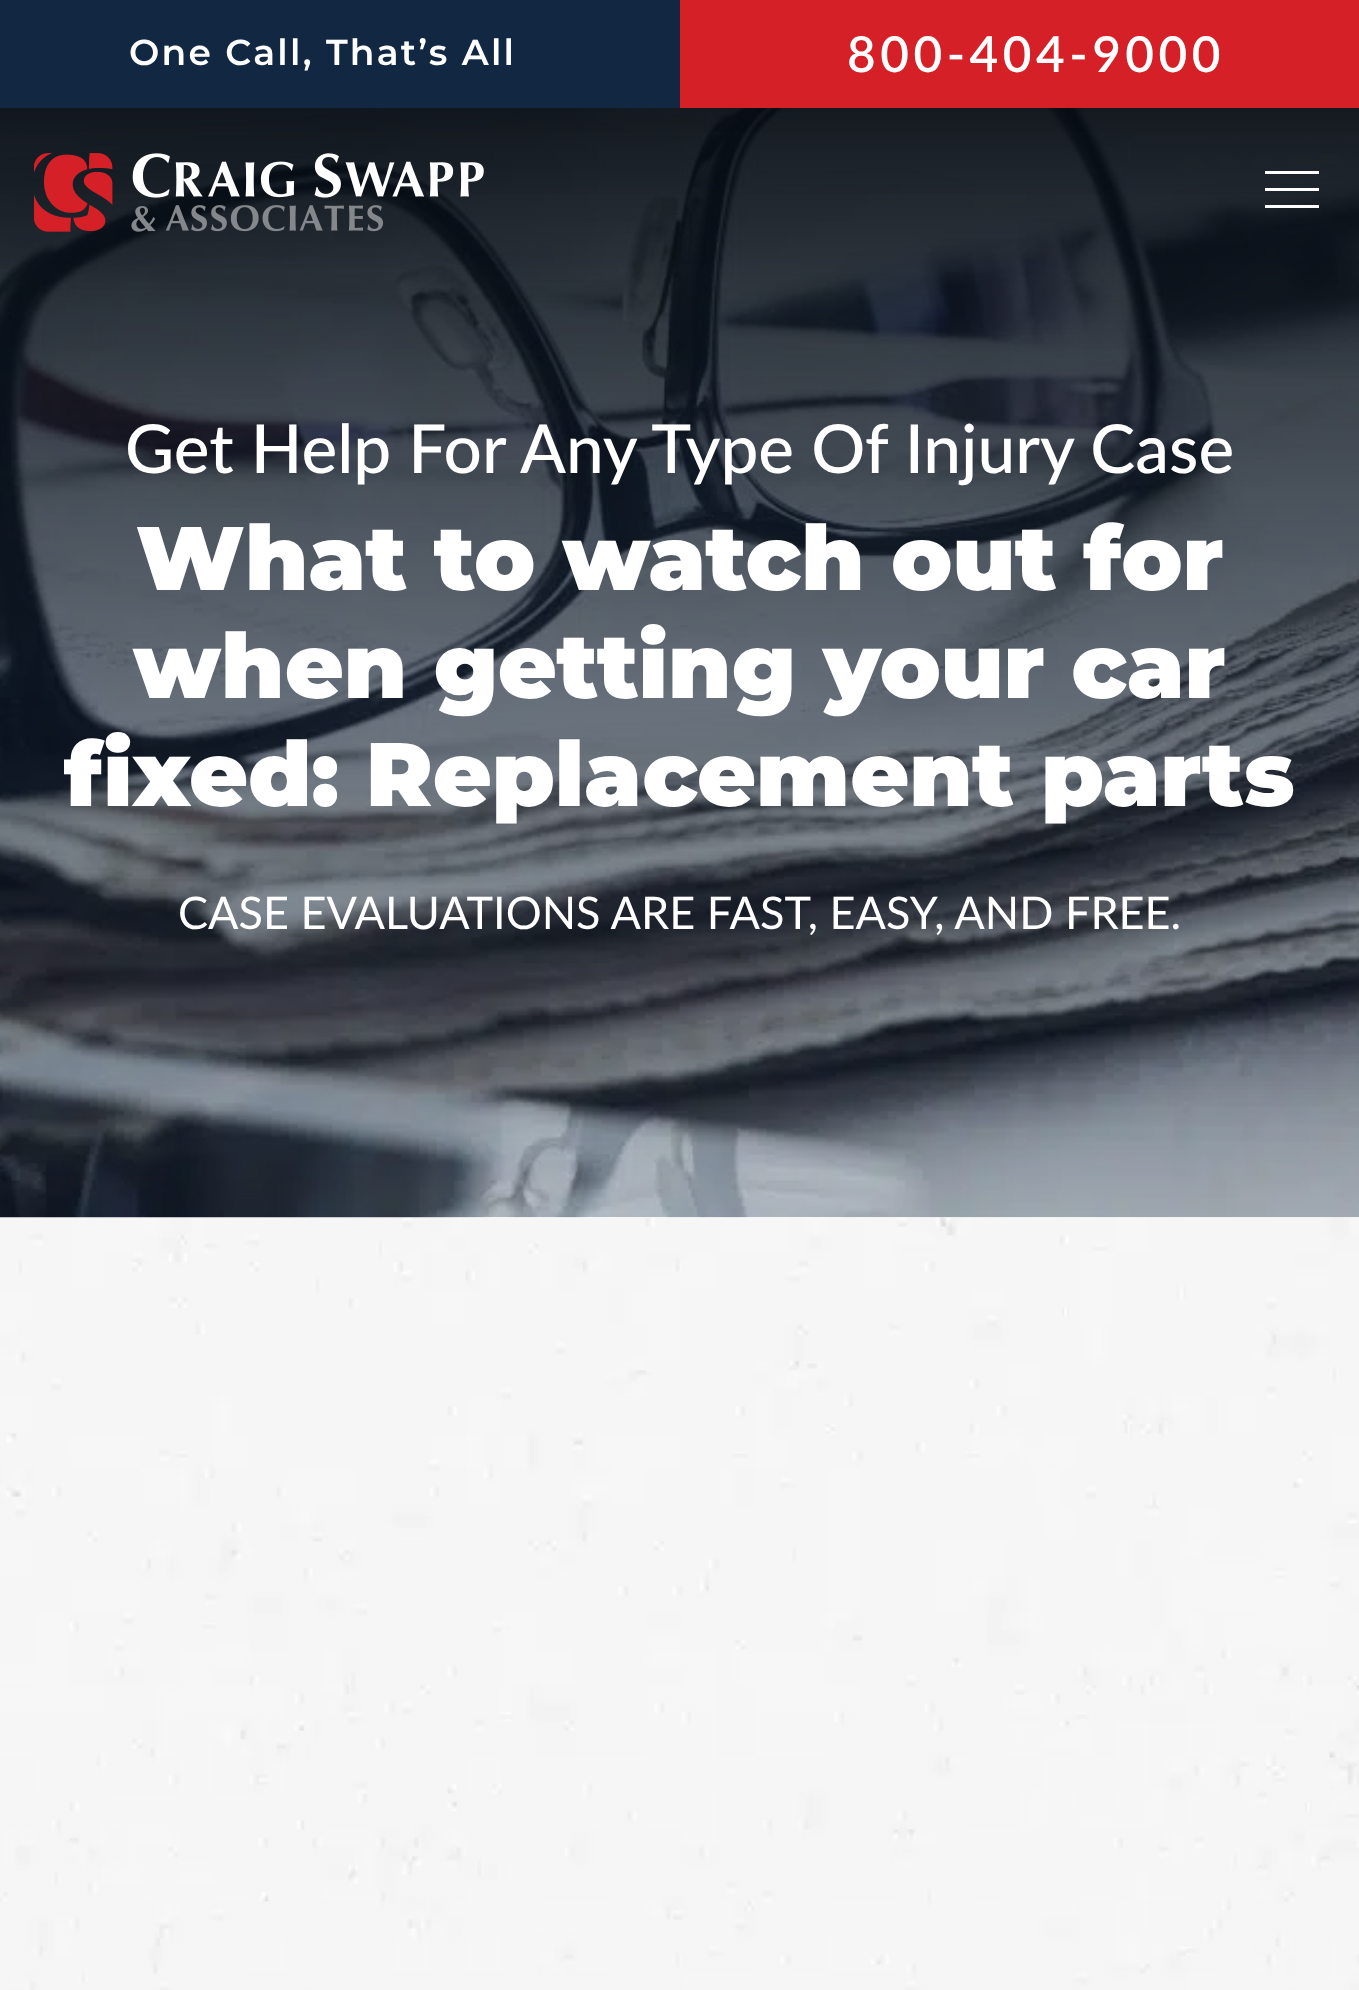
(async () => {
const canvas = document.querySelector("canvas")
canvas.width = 1359
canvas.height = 1990
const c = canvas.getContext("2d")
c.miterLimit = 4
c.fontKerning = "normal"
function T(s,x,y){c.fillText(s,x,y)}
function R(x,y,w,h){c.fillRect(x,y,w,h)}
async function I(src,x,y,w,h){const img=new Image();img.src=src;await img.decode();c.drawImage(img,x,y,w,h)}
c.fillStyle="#fff"
R(0,0,1359,1990)
c.fillStyle="#122741"
R(0,0,680,108)
c.letterSpacing="2.25px"
c.font="600 36px Montserrat"
c.fillStyle="#fff"
T("One Call, That’s All",129,65)
c.fillStyle="#d62027"
R(680,0,679,108)
c.letterSpacing="4.5px"
c.font="600 49.5px Lato"
c.fillStyle="#fff"
T("800-404-9000",847,72)
await I("3.png",0,1217,1359,773)
await I("2.png",0,108,1359,1110)
await I("1.png",34,153,450,79)
R(1265,171,54,3)
R(1265,188,54,3)
R(1265,205,54,3)
c.letterSpacing="0px"
c.font="500 67.5px Lato"
T("Get Help For Any Type Of Injury Case",125,473)
c.font="900 90px Montserrat"
T("What to watch out for",136,590)
T("when getting your car",133,698)
T("fixed: Replacement parts",64,806)
c.font="45px Lato"
T("CASE EVALUATIONS ARE FAST, EASY, AND FREE.",178,929)
})()
